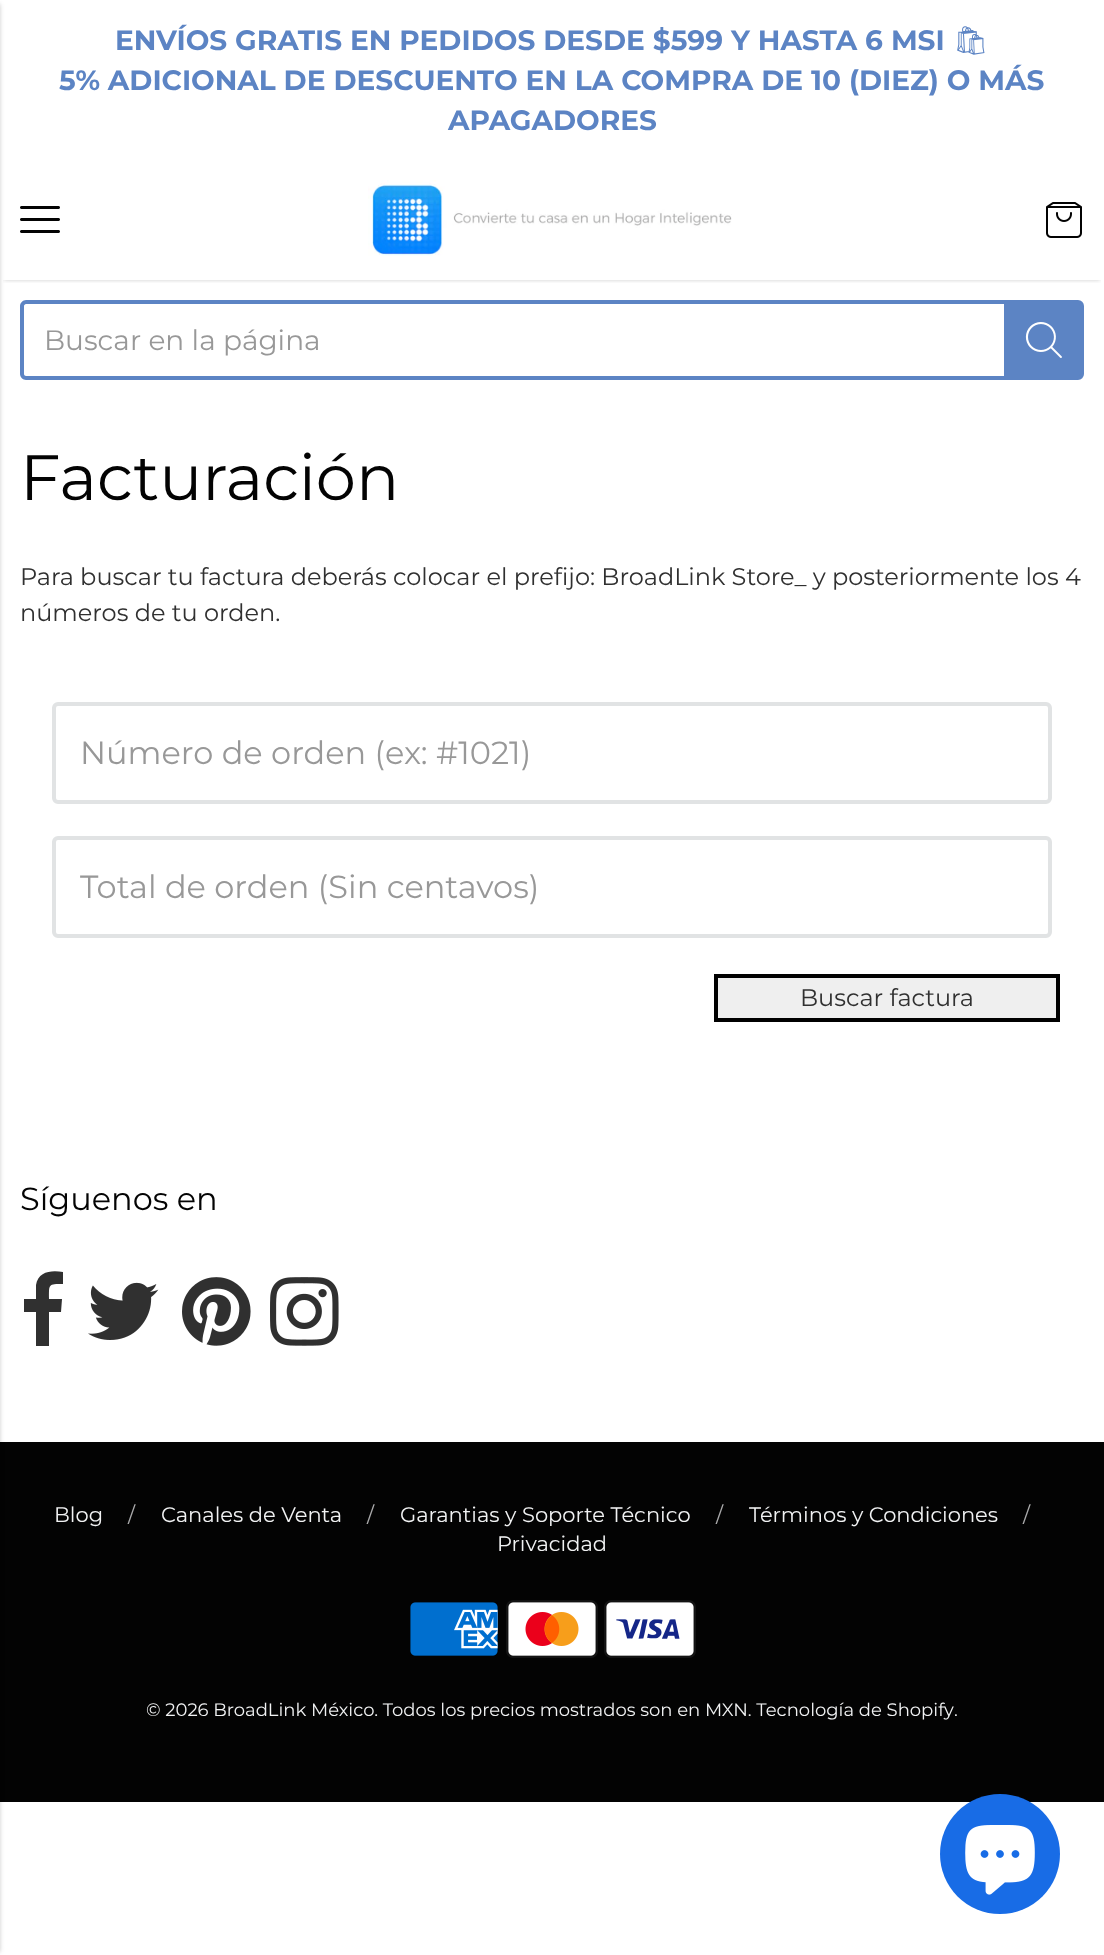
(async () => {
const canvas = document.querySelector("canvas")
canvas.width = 1104
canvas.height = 1955
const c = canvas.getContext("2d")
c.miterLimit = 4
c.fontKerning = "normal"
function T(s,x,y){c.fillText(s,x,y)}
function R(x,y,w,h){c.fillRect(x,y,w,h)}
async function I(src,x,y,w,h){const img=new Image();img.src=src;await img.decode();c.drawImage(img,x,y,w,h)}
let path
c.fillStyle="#fff"
R(0,0,1104,1955)
c.fillStyle="#030303"
R(0,1442,1104,360)
c.fillStyle="#00000033"
c.filter="blur(2px)"
c.beginPath()
c.rect(-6,4,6,1948)
c.fill()
c.filter="none"
c.font="bold 28px Montserrat"
c.fillStyle="#5c84c4"
T("ENVÍOS GRATIS EN PEDIDOS DESDE $599 Y HASTA 6 MSI",115,50)
c.font="28px Noto Emoji"
T("🛍",953,50)
c.font="bold 28px Montserrat"
T("5% ADICIONAL DE DESCUENTO EN LA COMPRA DE 10 (DIEZ) O MÁS",59,90)
T("APAGADORES",448,130)
c.save()
c.beginPath()
c.rect(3,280,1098,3)
c.clip()
c.fillStyle="#00000033"
c.filter="blur(2px)"
c.beginPath()
c.rect(4,168,1096,112)
c.fill()
c.filter="none"
c.restore()
await I("1.png",20,206,40,27)
await I("2.png",368,180,364,76)
await I("3.png",1046,202,36,36)
path = new Path2D("M26 300h978v80h-978c-3 0-6-3-6-6v-68c0-3 3-6 6-6zm0 4h978v72h-978c-1 0-2-1-2-2v-68c0-1 1-2 2-2z")
c.fill(path,"evenodd")
c.font="28px Montserrat"
c.fillStyle="#989898"
T("Buscar en la página",44,350)
c.fillStyle="#5c84c4"
c.beginPath()
c.roundRect(1006,302,76,76,[0,4,4,0])
c.fill()
c.strokeStyle="#5c84c4"
c.lineWidth=4
c.stroke()
await I("4.png",1025,322,37,36)
c.font="64px Montserrat"
c.fillStyle="#030303"
T("Facturación",20,500)
c.font="24px Montserrat"
c.fillStyle="#303030"
T("Para buscar tu factura deberás colocar el prefijo: BroadLink Store_ y posteriormente los 4",20,585)
T("números de tu orden.",20,621)
c.beginPath()
c.roundRect(54,704,996,98,4)
c.strokeStyle="#e1e3e4"
c.stroke()
c.font="32px Montserrat"
c.fillStyle="#989898"
T("Número de orden (ex: #1021)",80,764)
c.beginPath()
c.roundRect(54,838,996,98,4)
c.stroke()
T("Total de orden (Sin centavos)",80,898)
c.fillStyle="#efefef"
c.beginPath()
c.rect(716,976,342,44)
c.fill()
c.strokeStyle="#000"
c.stroke()
c.font="24px Montserrat"
c.fillStyle="#303030"
T("Buscar factura",800,1006)
c.font="32px Montserrat"
c.fillStyle="#030303"
T("Síguenos en",20,1210)
c.fillStyle="#303030"
path = new Path2D("M63 1272v12c-15 0-14 0-14 15h13l-1 13h-12v34h-13v-34h-12v-13h12v-14c2-14 16-15 27-13z")
c.fill(path)
await I("5.png",88,1282,71,58)
await I("6.png",182,1277,69,69)
await I("7.png",270,1277,69,69)
c.font="21px Montserrat"
c.fillStyle="#f1f2f3"
T("Blog",54,1522)
c.fillStyle="#aaaaab"
T("/",128,1522)
c.fillStyle="#f1f2f3"
T("Canales de Venta",161,1522)
c.fillStyle="#aaaaab"
T("/",367,1522)
c.fillStyle="#f1f2f3"
T("Garantias y Soporte Técnico",400,1522)
c.fillStyle="#aaaaab"
T("/",716,1522)
c.fillStyle="#f1f2f3"
T("Términos y Condiciones",749,1522)
c.fillStyle="#aaaaab"
T("/",1023,1522)
c.fillStyle="#f1f2f3"
T("Privacidad",497,1551)
await I("8.png",410,1602,88,54)
await I("9.png",506,1600,92,58)
await I("10.png",604,1600,92,58)
c.font="18px Montserrat"
T("© 2026 BroadLink México. Todos los precios mostrados son en MXN. Tecnología de Shopify",146,1716)
T(".",954,1716)
c.fillStyle="#186ce6"
c.beginPath()
c.arc(1000,1854,60,0,7)
c.fill()
await I("11.png",965,1825,70,70)
})()
